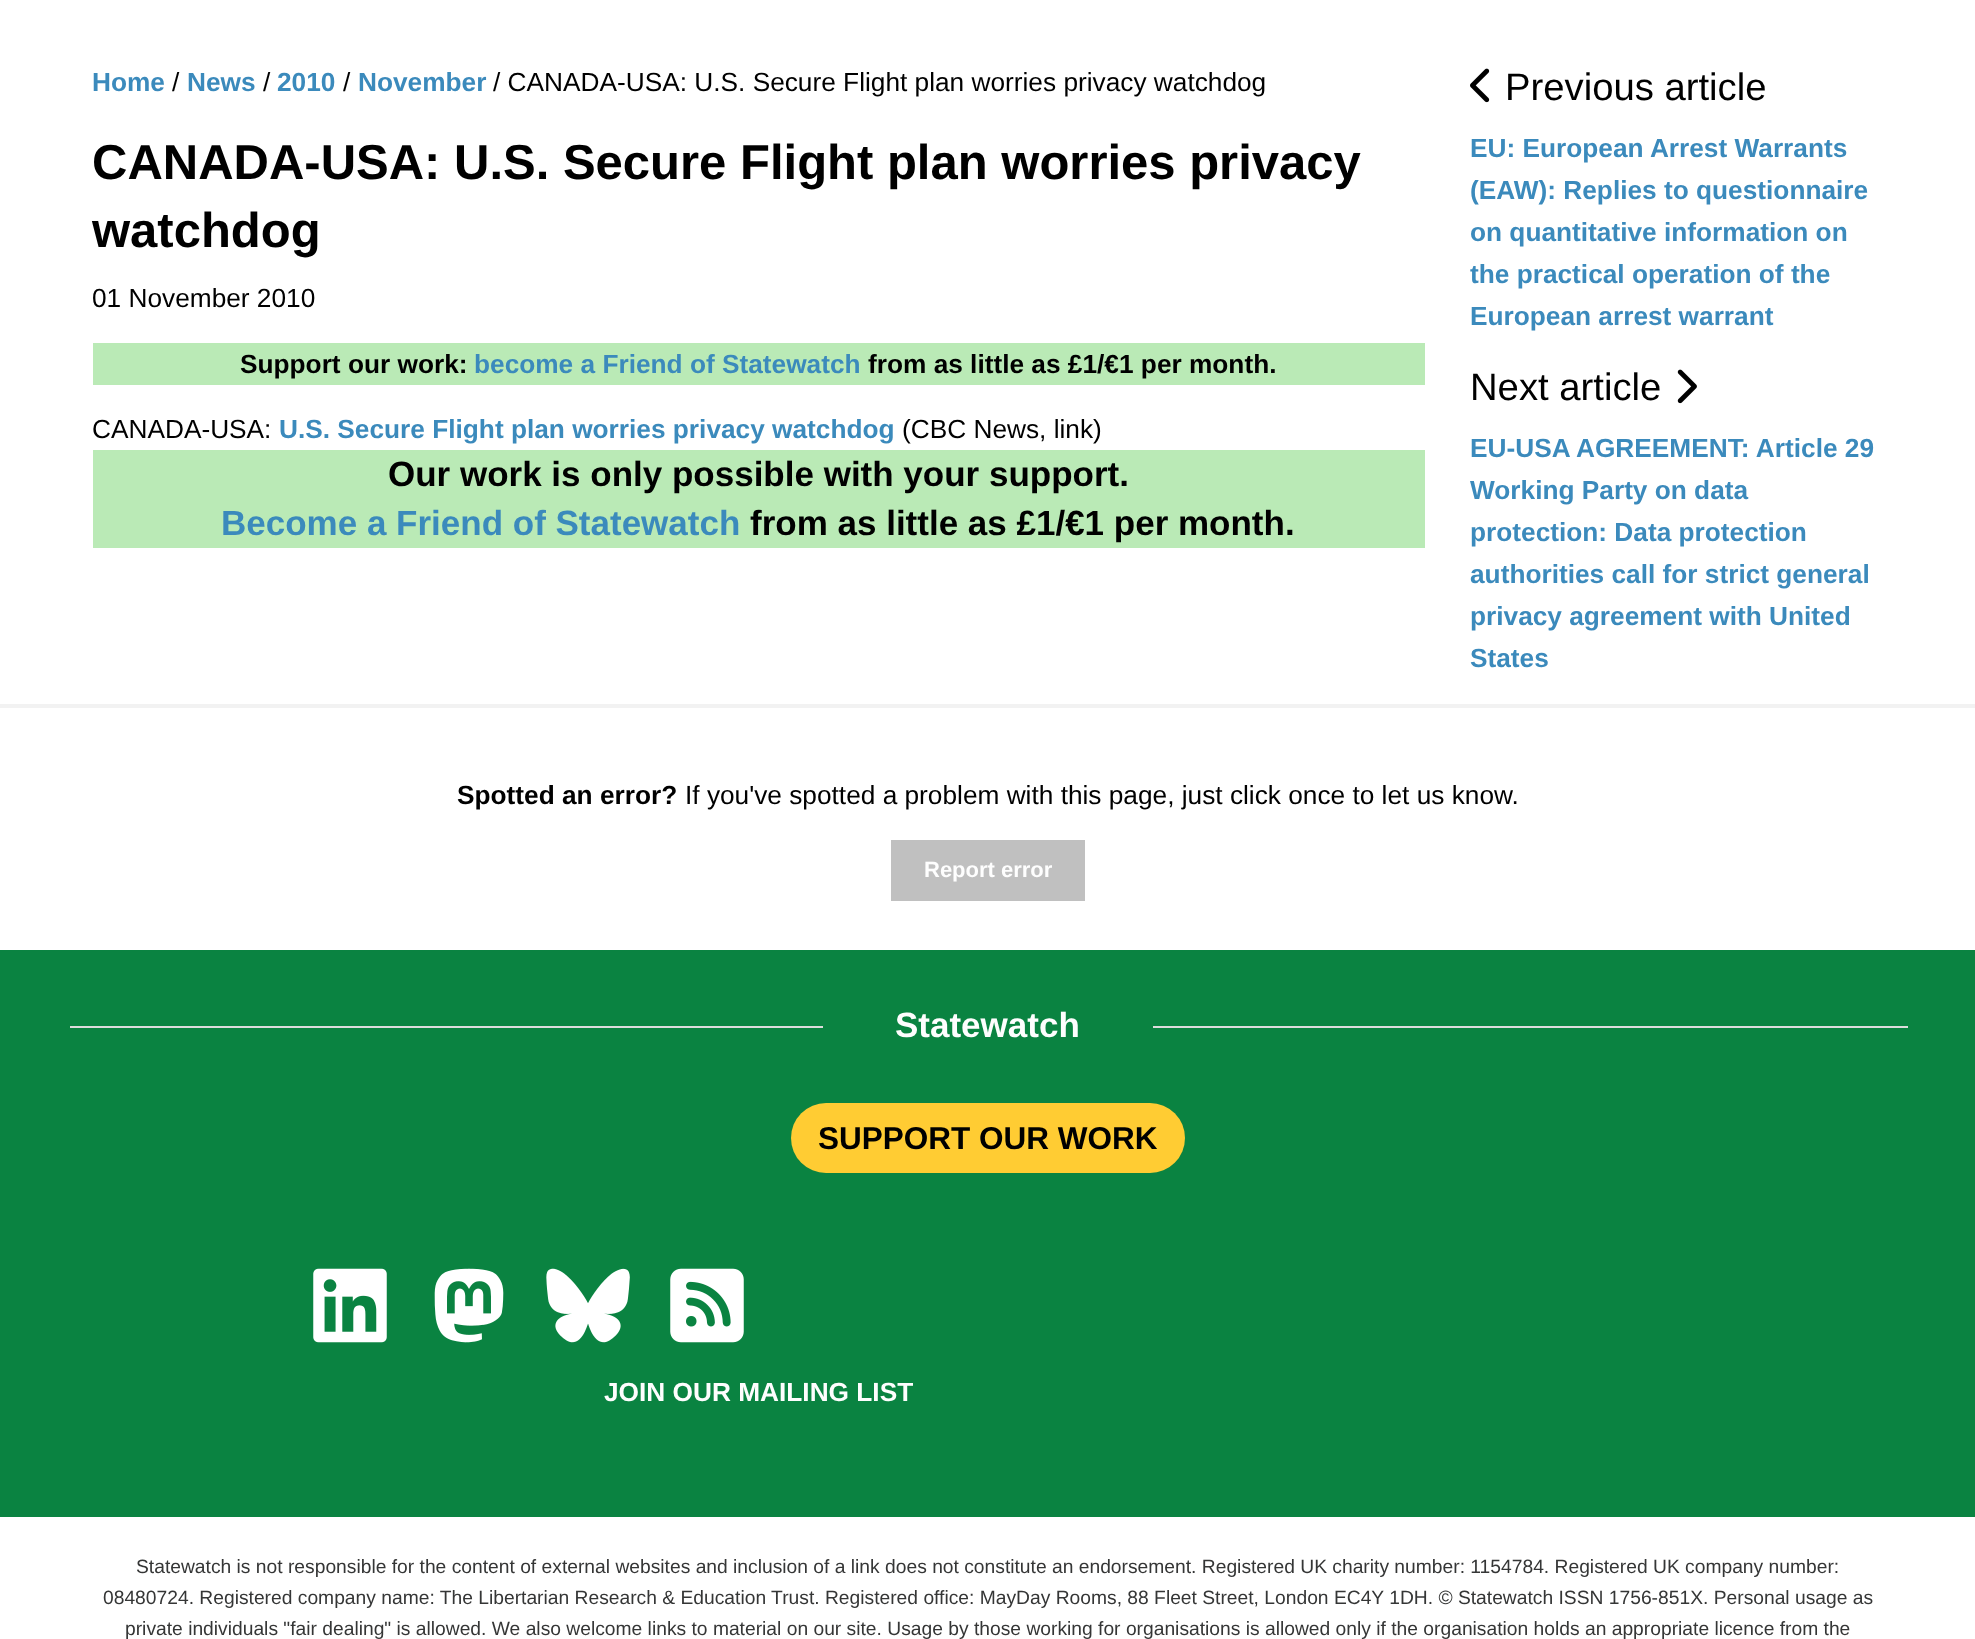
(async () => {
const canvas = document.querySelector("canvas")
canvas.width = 1975
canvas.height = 1639
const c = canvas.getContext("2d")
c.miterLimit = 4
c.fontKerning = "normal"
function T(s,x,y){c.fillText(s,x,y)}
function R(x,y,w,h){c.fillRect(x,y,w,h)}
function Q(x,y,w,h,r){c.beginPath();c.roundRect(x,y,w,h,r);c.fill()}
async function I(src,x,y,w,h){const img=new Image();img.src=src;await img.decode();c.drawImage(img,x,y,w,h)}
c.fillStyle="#fff"
R(0,0,1975,1639)
c.fillStyle="#f2f2f2"
R(0,704,1975,4)
c.font="bold 26.25px Liberation Sans"
c.fillStyle="#3b8abc"
T("Home",92,91)
c.font="26.25px Liberation Sans"
c.fillStyle="#000"
T("/",172,91)
c.font="bold 26.25px Liberation Sans"
c.fillStyle="#3b8abc"
T("News",187,91)
c.font="26.25px Liberation Sans"
c.fillStyle="#000"
T("/",263,91)
c.font="bold 26.25px Liberation Sans"
c.fillStyle="#3b8abc"
T("2010",277,91)
c.font="26.25px Liberation Sans"
c.fillStyle="#000"
T("/",343,91)
c.font="bold 26.25px Liberation Sans"
c.fillStyle="#3b8abc"
T("November",358,91)
c.font="26.25px Liberation Sans"
c.fillStyle="#000"
T("/ CANADA-USA: U.S. Secure Flight plan worries privacy watchdog",493,91)
c.font="bold 49px Liberation Sans"
T("CANADA-USA: U.S. Secure Flight plan worries privacy",92,179)
T("watchdog",92,247)
c.font="26.25px Liberation Sans"
T("01 November 2010",92,307)
c.fillStyle="#baeab6"
R(93,343,1332,42)
c.font="bold 26.25px Liberation Sans"
c.fillStyle="#000"
T("Support our work:",240,373)
c.fillStyle="#3b8abc"
T("become a Friend of Statewatch",474,373)
c.fillStyle="#000"
T("from as little as £1/€1 per month.",868,373)
c.font="26.25px Liberation Sans"
T("CANADA-USA:",92,438)
c.font="bold 26.25px Liberation Sans"
c.fillStyle="#3b8abc"
T("U.S. Secure Flight plan worries privacy watchdog",279,438)
c.font="26.25px Liberation Sans"
c.fillStyle="#000"
T("(CBC News, link)",902,438)
c.fillStyle="#baeab6"
R(93,450,1332,98)
c.font="bold 35px Liberation Sans"
c.fillStyle="#000"
T("Our work is only possible with your support.",388,486)
c.fillStyle="#3b8abc"
T("Become a Friend of Statewatch",221,535)
c.fillStyle="#000"
T("from as little as £1/€1 per month.",750,535)
await I("1.png",1470,68,20,35)
c.font="38.25px Liberation Sans"
T("Previous article",1505,100)
c.font="bold 26.25px Liberation Sans"
c.fillStyle="#3b8abc"
T("EU: European Arrest Warrants",1470,157)
T("(EAW): Replies to questionnaire",1470,199)
T("on quantitative information on",1470,241)
T("the practical operation of the",1470,283)
T("European arrest warrant",1470,325)
c.font="38.25px Liberation Sans"
c.fillStyle="#000"
T("Next article",1470,400)
await I("2.png",1677,369,20,35)
c.font="bold 26.25px Liberation Sans"
c.fillStyle="#3b8abc"
T("EU-USA AGREEMENT: Article 29",1470,457)
T("Working Party on data",1470,499)
T("protection: Data protection",1470,541)
T("authorities call for strict general",1470,583)
T("privacy agreement with United",1470,625)
T("States",1470,667)
c.fillStyle="#000"
T("Spotted an error?",457,804)
c.font="26.25px Liberation Sans"
T("If you've spotted a problem with this page, just click once to let us know.",685,804)
c.fillStyle="#c0c0c0"
R(891,840,194,61)
c.font="bold 22px Liberation Sans"
c.fillStyle="#fefefe"
T("Report error",924,877)
c.fillStyle="#0a8341"
R(0,950,1975,567)
c.fillStyle="#dddcdc"
R(70,1026,753,2)
c.font="bold 35px Liberation Sans"
c.fillStyle="#fefefe"
T("Statewatch",895,1037)
c.fillStyle="#dddcdc"
R(1153,1026,755,2)
c.fillStyle="#fc3"
Q(791,1103,394,70,35)
c.font="bold 31.5px Liberation Sans"
c.fillStyle="#000"
T("SUPPORT OUR WORK",818,1149)
await I("3.png",313,1268,74,75)
await I("4.png",434,1268,70,75)
await I("5.png",546,1268,84,75)
await I("6.png",670,1268,74,75)
c.font="bold 26.25px Liberation Sans"
c.fillStyle="#fefefe"
T("JOIN OUR MAILING LIST",604,1401)
c.font="19.25px Liberation Sans"
c.fillStyle="#353636"
T("Statewatch is not responsible for the content of external websites and inclusion of a link does not constitute an endorsement. Registered UK charity number: 1154784. Registered UK company number:",136,1573)
T("08480724. Registered company name: The Libertarian Research & Education Trust. Registered office: MayDay Rooms, 88 Fleet Street, London EC4Y 1DH. © Statewatch ISSN 1756-851X. Personal usage as",103,1604)
T("private individuals \"fair dealing\" is allowed. We also welcome links to material on our site. Usage by those working for organisations is allowed only if the organisation holds an appropriate licence from the",125,1635)
})()
